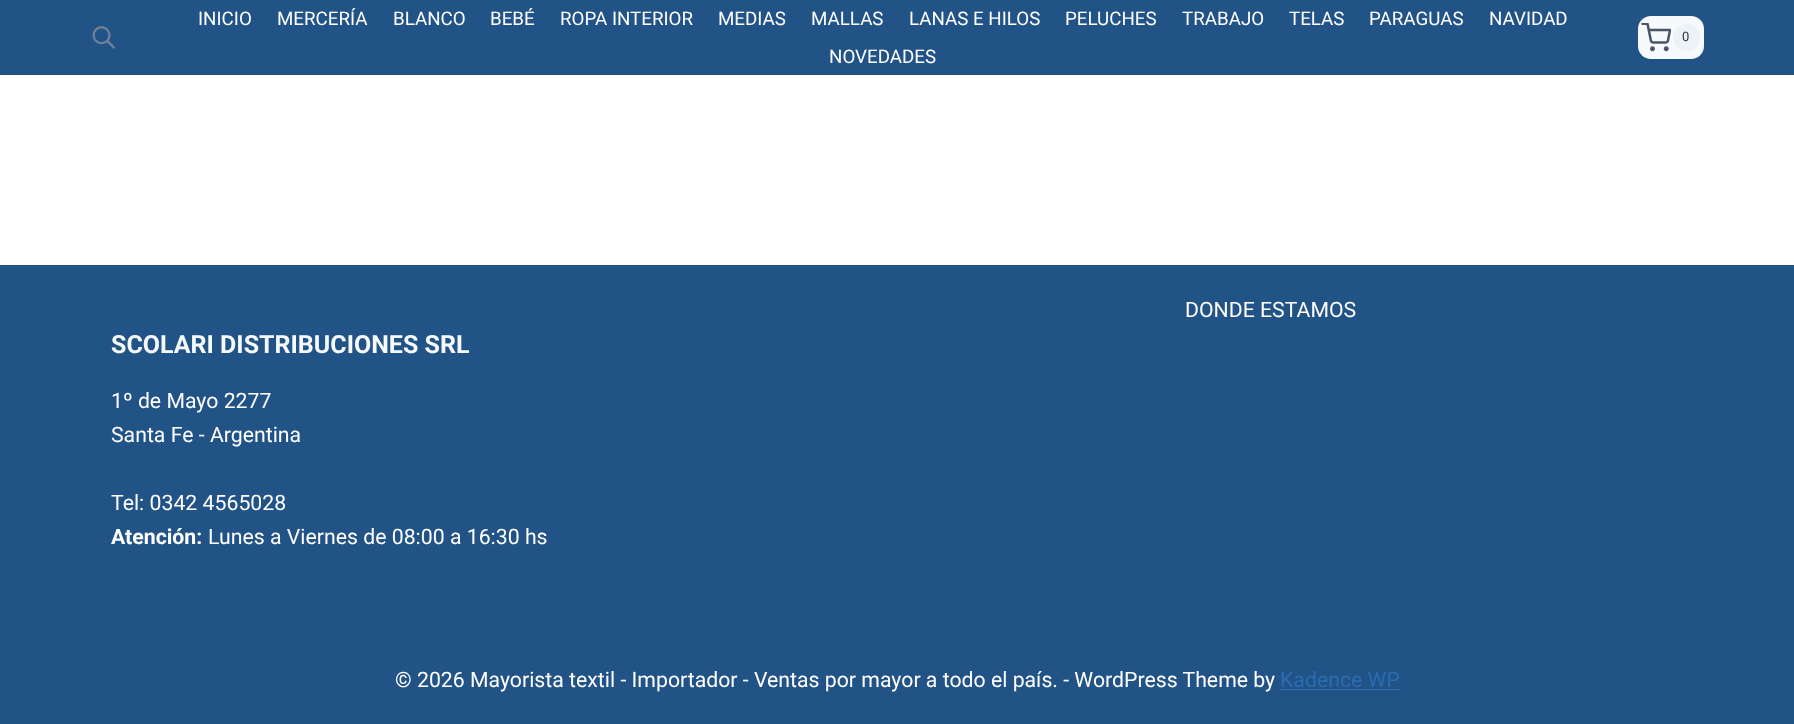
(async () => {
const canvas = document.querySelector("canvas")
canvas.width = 1794
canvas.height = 724
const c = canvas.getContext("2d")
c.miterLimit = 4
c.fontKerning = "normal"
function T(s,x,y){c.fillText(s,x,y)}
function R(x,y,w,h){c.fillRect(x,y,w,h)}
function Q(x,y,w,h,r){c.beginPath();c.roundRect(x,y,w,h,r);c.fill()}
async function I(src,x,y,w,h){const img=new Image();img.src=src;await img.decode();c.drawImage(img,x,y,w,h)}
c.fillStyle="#fff"
R(0,0,1794,724)
c.fillStyle="#215387"
R(0,0,1794,75)
await I("1.png",92,26,23,23)
c.font="18.75px Roboto"
c.fillStyle="#fff"
T("INICIO",198,25)
T("MERCERÍA",277,25)
T("BLANCO",393,25)
T("BEBÉ",490,25)
T("ROPA INTERIOR",560,25)
T("MEDIAS",718,25)
T("MALLAS",811,25)
T("LANAS E HILOS",909,25)
T("PELUCHES",1065,25)
T("TRABAJO",1182,25)
T("TELAS",1289,25)
T("PARAGUAS",1369,25)
T("NAVIDAD",1489,25)
T("NOVEDADES",829,63)
c.fillStyle="#f7fafc"
Q(1638,16,66,43,13)
await I("2.png",1641,23,30,29)
c.fillStyle="#edf2f7"
c.beginPath()
c.arc(1686.5,37.5,13.5,0,7)
c.fill()
c.font="13px Roboto"
c.fillStyle="#2d3748"
T("0",1682,41)
c.fillStyle="#215387"
R(0,265,1794,459)
c.font="21.25px Roboto"
c.fillStyle="#fff"
T("DONDE ESTAMOS",1185,317)
c.font="bold 25px Roboto"
c.fillStyle="#f7fafc"
T("SCOLARI DISTRIBUCIONES SRL",111,353)
c.font="21.25px Roboto"
c.fillStyle="#fff"
T("1º de Mayo 2277",111,408)
T("Santa Fe - Argentina",111,442)
T("Tel: 0342 4565028",111,510)
c.font="bold 21.25px Roboto"
T("Atención:",111,544)
c.font="21.25px Roboto"
T("Lunes a Viernes de 08:00 a 16:30 hs",208,544)
T("© 2026 Mayorista textil - Importador - Ventas por mayor a todo el país. - WordPress Theme by",395,687)
c.fillStyle="#2b6cb0"
T("Kadence WP",1280,687)
R(1280,689,120,1)
})()
